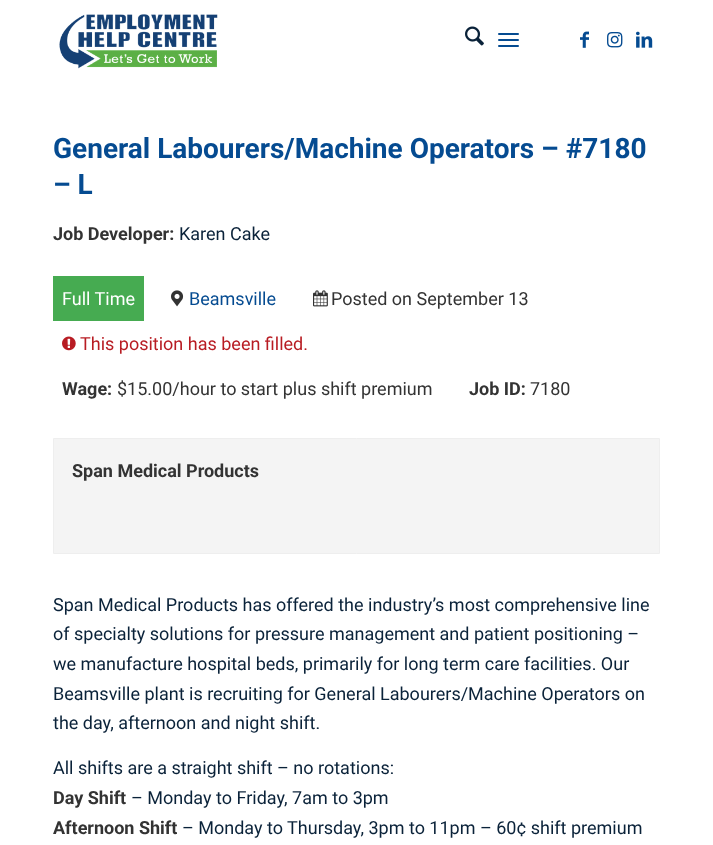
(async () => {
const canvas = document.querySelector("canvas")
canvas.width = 713
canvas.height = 845
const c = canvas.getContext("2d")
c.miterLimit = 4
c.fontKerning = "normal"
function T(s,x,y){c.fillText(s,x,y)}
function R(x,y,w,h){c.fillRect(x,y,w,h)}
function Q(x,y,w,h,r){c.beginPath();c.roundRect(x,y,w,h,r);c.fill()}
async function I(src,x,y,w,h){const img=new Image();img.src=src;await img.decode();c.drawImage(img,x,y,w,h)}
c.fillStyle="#fff"
R(0,0,713,845)
await I("1.png",59,14,159,55)
await I("2.png",465,26,19,20)
c.fillStyle="#054b91"
Q(498,39,21,2,1)
Q(498,33,21,2,1)
Q(498,45,21,2,1)
await I("3.png",580,31,9,17)
await I("4.png",607,32,16,16)
await I("5.png",636,31,17,17)
c.font="bold 28px Roboto"
T("General Labourers/Machine Operators – #7180",53,158)
T("– L",53,194)
c.font="bold 18px Roboto"
c.fillStyle="#333"
T("Job Developer:",53,240)
c.font="18px Roboto"
c.fillStyle="#0a2239"
T("Karen Cake",179,240)
c.fillStyle="#46ab51"
R(53,276,91,45)
c.fillStyle="#fff"
T("Full Time",62,305)
await I("6.png",171,290,13,17)
c.fillStyle="#054b91"
T("Beamsville",189,305)
await I("7.png",313,290,15,17)
c.fillStyle="#333"
T("Posted on September 13",331,305)
await I("8.png",62,336,14,15)
c.fillStyle="#b81c23"
T("This position has been filled.",80,350)
c.font="bold 18px Roboto"
c.fillStyle="#333"
T("Wage:",62,395)
c.font="18px Roboto"
T("$15.00/hour to start plus shift premium",117,395)
c.font="bold 18px Roboto"
T("Job ID:",469,395)
c.font="18px Roboto"
T("7180",530,395)
c.fillStyle="#f4f4f4"
c.beginPath()
c.rect(53.5,438.5,606,115)
c.fill()
c.strokeStyle="#eee"
c.stroke()
c.font="bold 18px Roboto"
c.fillStyle="#333"
T("Span Medical Products",72,477)
c.font="18px Roboto"
c.fillStyle="#0a2239"
T("Span Medical Products has offered the industry’s most comprehensive line",53,611)
T("of specialty solutions for pressure management and patient positioning –",53,640)
T("we manufacture hospital beds, primarily for long term care facilities. Our",53,670)
T("Beamsville plant is recruiting for General Labourers/Machine Operators on",53,700)
T("the day, afternoon and night shift.",53,729)
T("All shifts are a straight shift – no rotations:",53,774)
c.font="bold 18px Roboto"
c.fillStyle="#333"
T("Day Shift",53,804)
c.font="18px Roboto"
c.fillStyle="#0a2239"
T("– Monday to Friday, 7am to 3pm",131,804)
c.font="bold 18px Roboto"
c.fillStyle="#333"
T("Afternoon Shift",53,834)
c.font="18px Roboto"
c.fillStyle="#0a2239"
T("– Monday to Thursday, 3pm to 11pm – 60¢ shift premium",182,834)
})()
